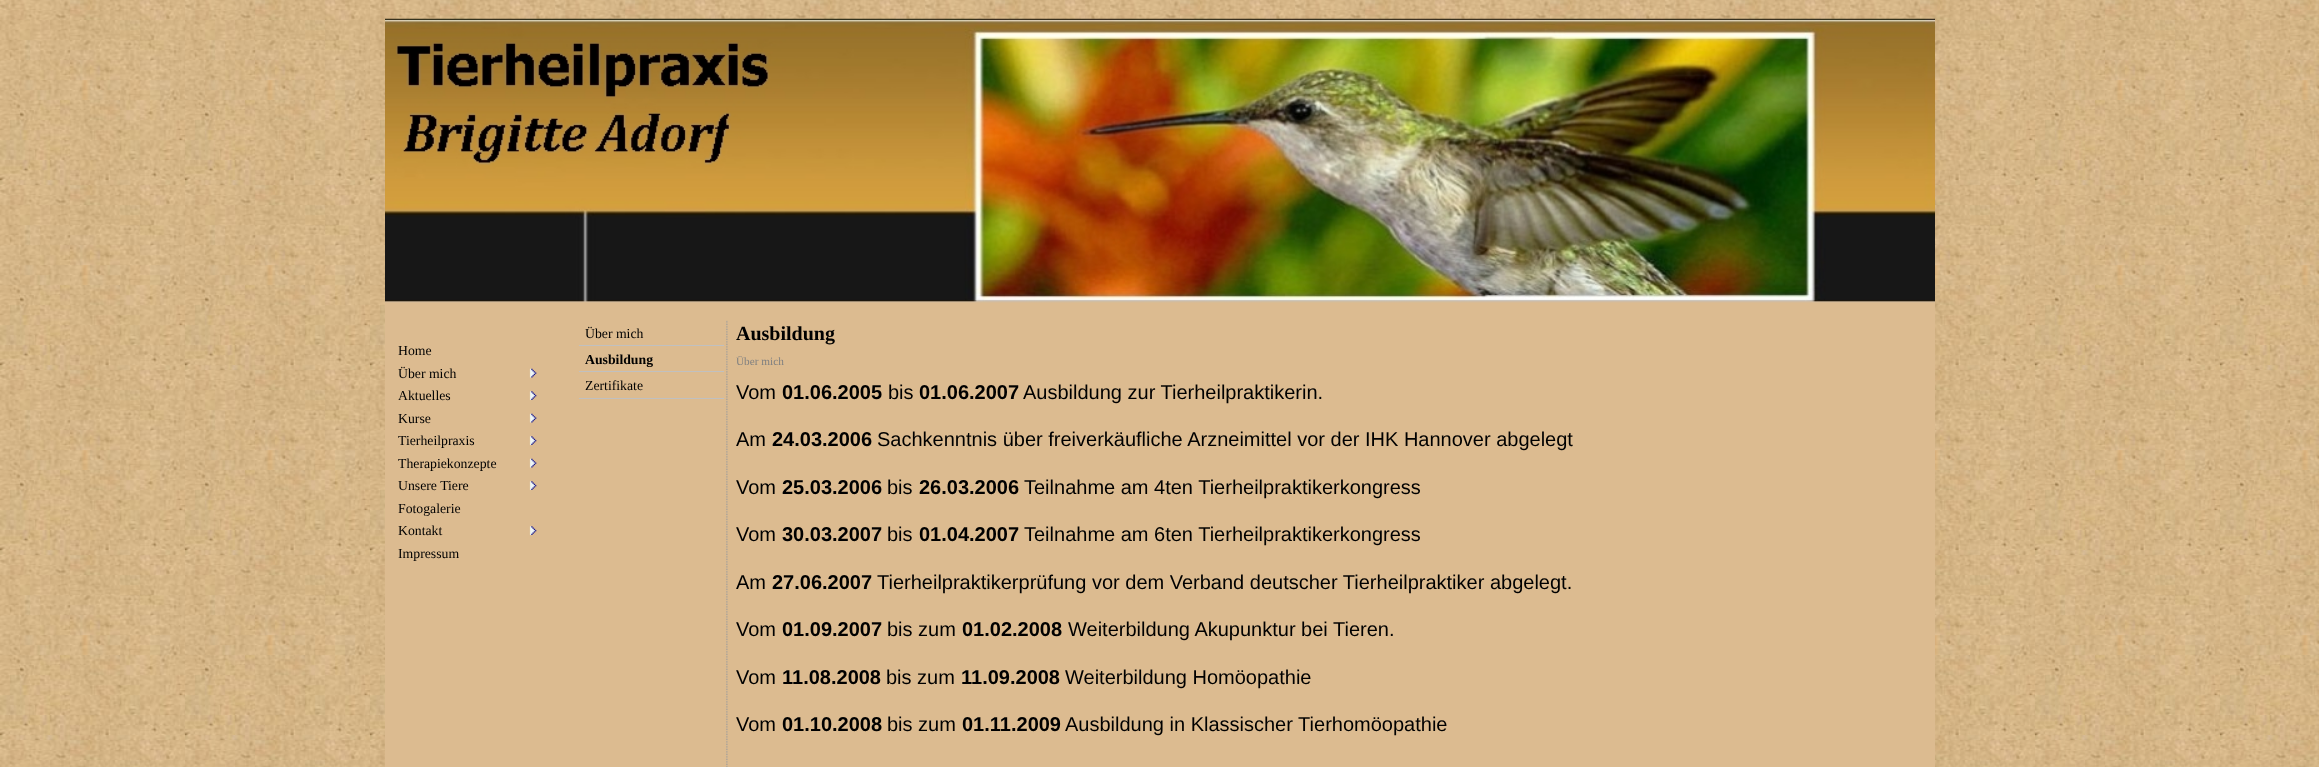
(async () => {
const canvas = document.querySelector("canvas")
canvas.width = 2319
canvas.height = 767
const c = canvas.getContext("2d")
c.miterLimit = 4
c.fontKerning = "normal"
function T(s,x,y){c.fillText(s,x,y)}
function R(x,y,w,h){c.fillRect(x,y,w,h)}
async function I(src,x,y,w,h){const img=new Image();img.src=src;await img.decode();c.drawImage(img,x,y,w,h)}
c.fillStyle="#fff"
R(0,0,2319,767)
await I("1.png",0,0,2319,767)
await I("2.png",385,18,1550,285)
c.fillStyle="#dcbb90"
R(385,303,1550,464)
c.font="13.75px Liberation Serif"
c.fillStyle="#000"
T("Home",398,355)
await I("3.png",529,368,8,10)
T("Über mich",398,378)
await I("4.png",529,391,8,9)
T("Aktuelles",398,400)
await I("3.png",529,413,8,10)
T("Kurse",398,423)
await I("4.png",529,436,8,9)
T("Tierheilpraxis",398,445)
await I("3.png",529,458,8,10)
T("Therapiekonzepte",398,468)
await I("4.png",529,481,8,9)
T("Unsere Tiere",398,490)
T("Fotogalerie",398,513)
await I("4.png",529,526,8,9)
T("Kontakt",398,535)
T("Impressum",398,558)
c.fillStyle="#c0c0c0"
R(579,345,145,1)
c.fillStyle="#000"
T("Über mich",585,338)
c.fillStyle="#c0c0c0"
R(579,371,145,1)
c.font="bold 13.75px Liberation Serif"
c.fillStyle="#000"
T("Ausbildung",585,364)
c.fillStyle="#c0c0c0"
R(579,398,145,1)
c.font="13.75px Liberation Serif"
c.fillStyle="#000"
T("Zertifikate",585,390)
await I("5.png",726,320,2,447)
c.font="bold 20px Liberation Serif"
T("Ausbildung",736,340)
c.font="11.25px Liberation Serif"
c.fillStyle="#808080"
T("Über mich",736,365)
c.font="20px Liberation Sans"
c.fillStyle="#000"
T("Vom",736,399)
c.font="bold 20px Liberation Sans"
T("01.06.2005",782,399)
c.font="20px Liberation Sans"
T("bis",888,399)
c.font="bold 20px Liberation Sans"
T("01.06.2007",919,399)
c.font="20px Liberation Sans"
T("Ausbildung zur Tierheilpraktikerin.",1023,399)
T("Am",736,446)
c.font="bold 20px Liberation Sans"
T("24.03.2006",772,446)
c.font="20px Liberation Sans"
T("Sachkenntnis über freiverkäufliche Arzneimittel vor der IHK Hannover abgelegt",877,446)
T("Vom",736,494)
c.font="bold 20px Liberation Sans"
T("25.03.2006",782,494)
c.font="20px Liberation Sans"
T("bis",887,494)
c.font="bold 20px Liberation Sans"
T("26.03.2006",919,494)
c.font="20px Liberation Sans"
T("Teilnahme am 4ten Tierheilpraktikerkongress",1024,494)
T("Vom",736,541)
c.font="bold 20px Liberation Sans"
T("30.03.2007",782,541)
c.font="20px Liberation Sans"
T("bis",887,541)
c.font="bold 20px Liberation Sans"
T("01.04.2007",919,541)
c.font="20px Liberation Sans"
T("Teilnahme am 6ten Tierheilpraktikerkongress",1024,541)
T("Am",736,589)
c.font="bold 20px Liberation Sans"
T("27.06.2007",772,589)
c.font="20px Liberation Sans"
T("Tierheilpraktikerprüfung vor dem Verband deutscher Tierheilpraktiker abgelegt.",877,589)
T("Vom",736,636)
c.font="bold 20px Liberation Sans"
T("01.09.2007",782,636)
c.font="20px Liberation Sans"
T("bis zum",887,636)
c.font="bold 20px Liberation Sans"
T("01.02.2008",962,636)
c.font="20px Liberation Sans"
T("Weiterbildung Akupunktur bei Tieren.",1068,636)
T("Vom",736,684)
c.font="bold 20px Liberation Sans"
T("11.08.2008",782,684)
c.font="20px Liberation Sans"
T("bis zum",886,684)
c.font="bold 20px Liberation Sans"
T("11.09.2008",961,684)
c.font="20px Liberation Sans"
T("Weiterbildung Homöopathie",1065,684)
T("Vom",736,731)
c.font="bold 20px Liberation Sans"
T("01.10.2008",782,731)
c.font="20px Liberation Sans"
T("bis zum",887,731)
c.font="bold 20px Liberation Sans"
T("01.11.2009",962,731)
c.font="20px Liberation Sans"
T("Ausbildung in Klassischer Tierhomöopathie",1065,731)
})()
